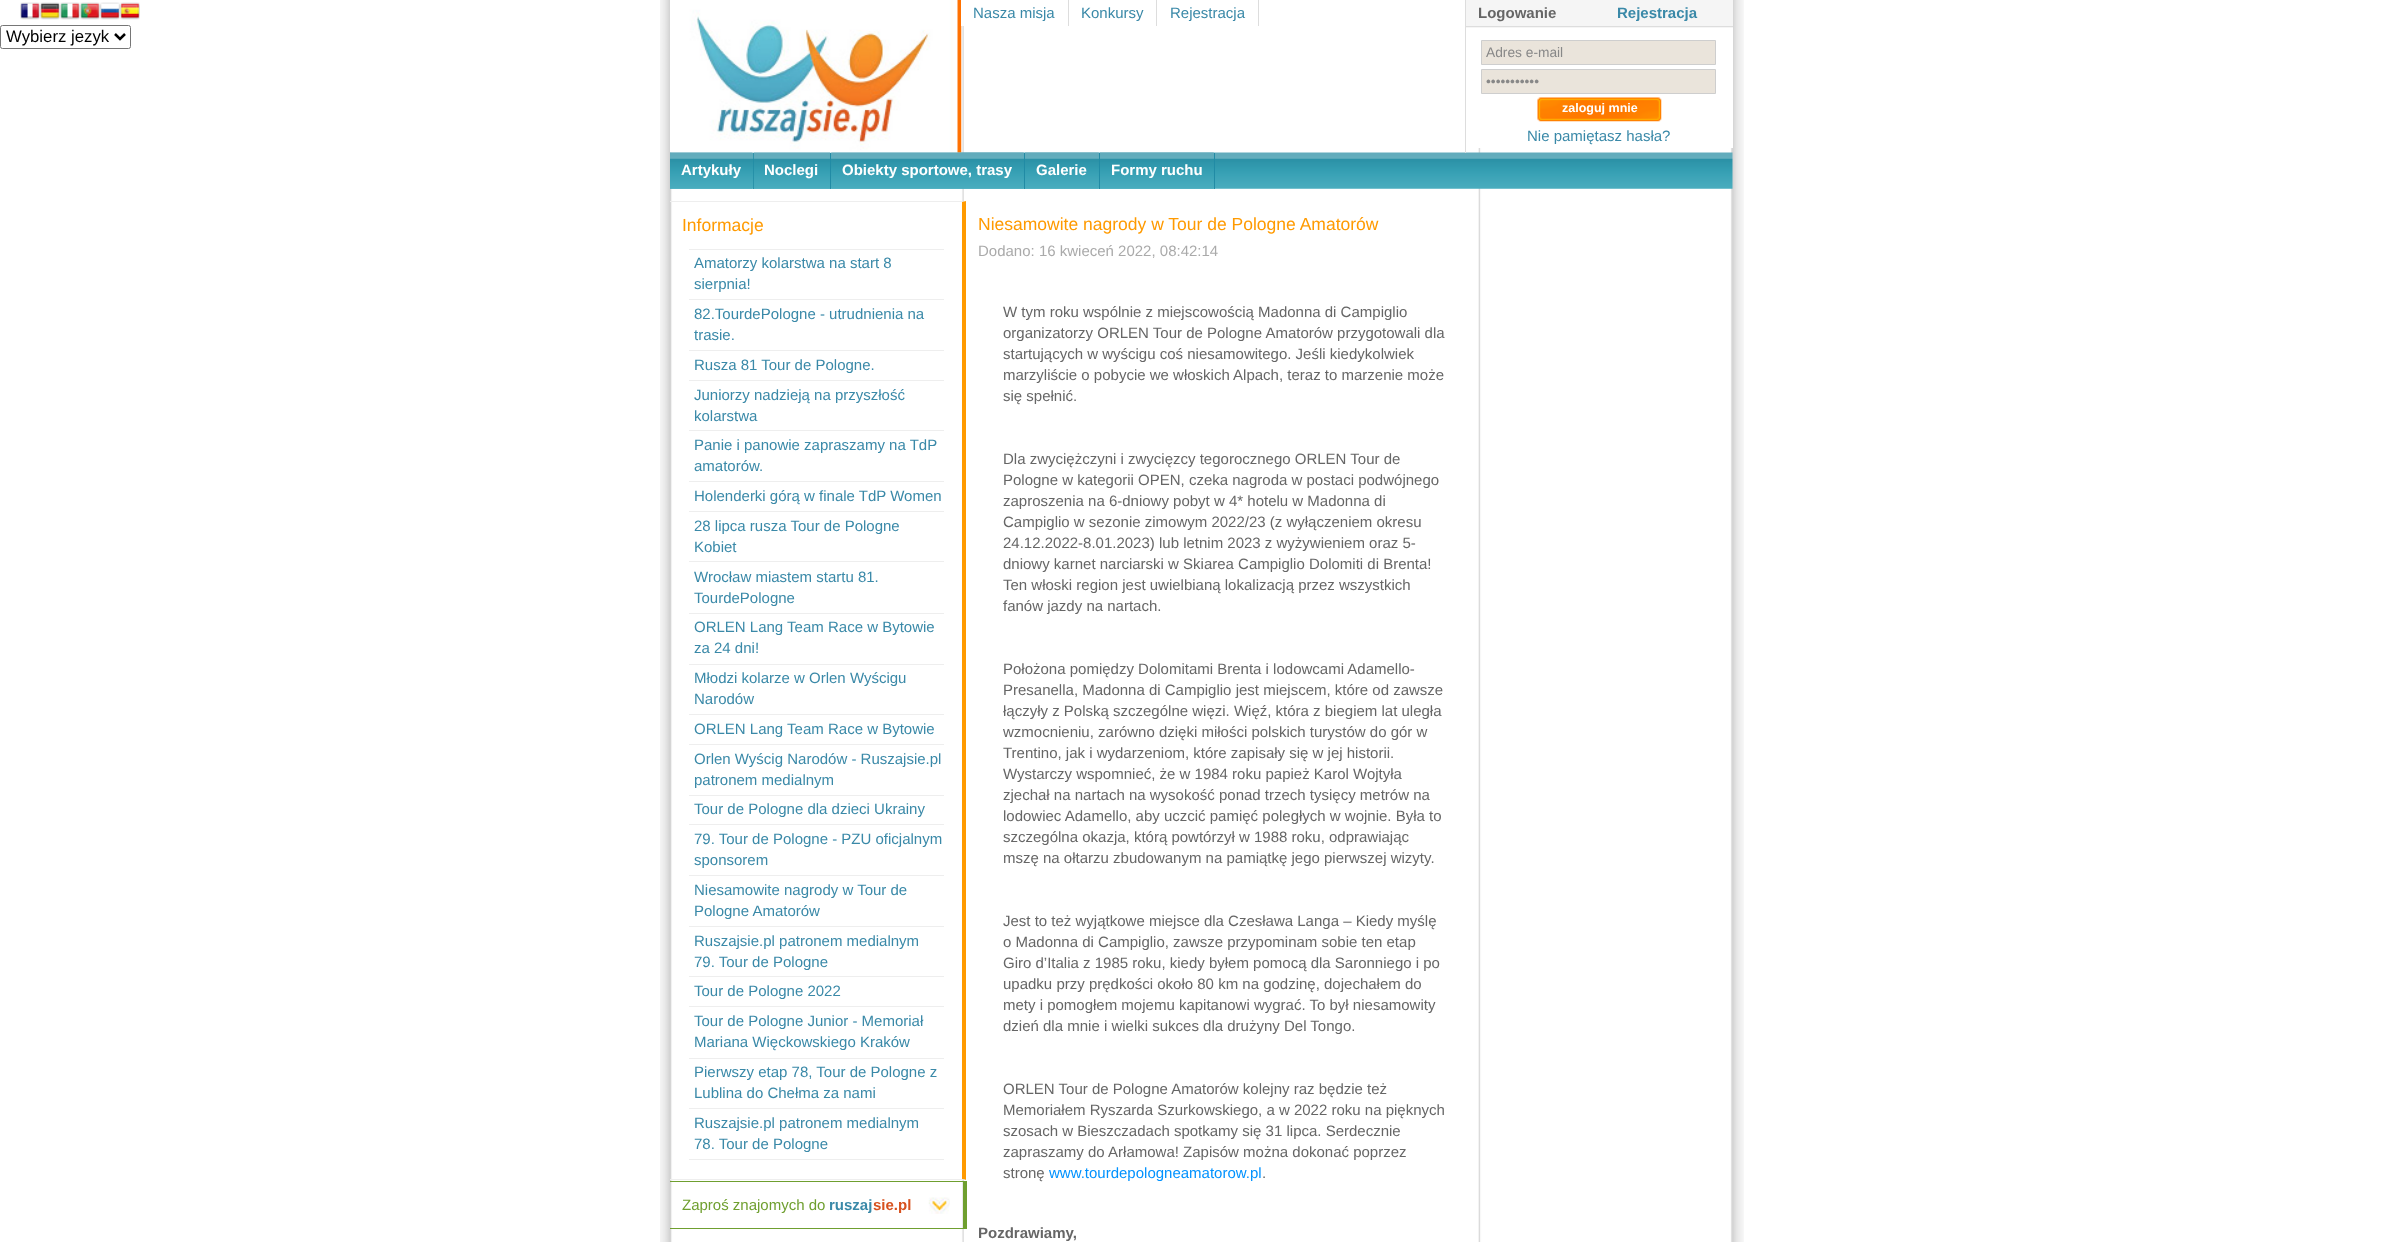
(async () => {
const canvas = document.querySelector("canvas")
canvas.width = 2403
canvas.height = 1242
const c = canvas.getContext("2d")
c.miterLimit = 4
c.fontKerning = "normal"
function T(s,x,y){c.fillText(s,x,y)}
function R(x,y,w,h){c.fillRect(x,y,w,h)}
async function I(src,x,y,w,h){const img=new Image();img.src=src;await img.decode();c.drawImage(img,x,y,w,h)}
let path
c.fillStyle="#fff"
R(0,0,2403,1242)
await I("1.png",660,0,1084,1242)
await I("2.png",20,2,20,18)
await I("3.png",40,2,20,18)
await I("4.png",60,2,20,18)
await I("5.png",80,2,20,18)
await I("6.png",100,2,20,18)
await I("7.png",120,2,20,18)
c.beginPath()
c.roundRect(.5,25.5,130,23,2)
c.strokeStyle="#767676"
c.stroke()
path = new Path2D("M115 34l5 5l5-5")
c.strokeStyle="#000"
c.lineWidth=2.5
c.stroke(path)
c.font="16.75px Liberation Sans"
c.fillStyle="#000"
T("Wybierz jezyk",6,42)
await I("10.png",670,152,1063,37)
await I("8.png",670,0,292,153)
c.fillStyle="#ddd"
R(1465,0,1,153)
c.fillStyle="#fff"
R(961,0,3,26)
c.fillStyle="#ddd"
R(1068,0,1,26)
c.font="15px Liberation Sans"
c.fillStyle="#3a89a8"
T("Nasza misja",973,18)
c.fillStyle="#ddd"
R(1156,0,1,26)
c.fillStyle="#3a89a8"
T("Konkursy",1081,18)
c.fillStyle="#ddd"
R(1258,0,1,26)
c.fillStyle="#3a89a8"
T("Rejestracja",1170,18)
c.fillStyle="#fff"
R(1478,28,255,120)
c.fillStyle="#f5f5f5"
R(1466,0,267,28)
c.fillStyle="#ddd"
R(1466,26,267,1)
c.font="bold 15px Liberation Sans"
c.fillStyle="#666"
T("Logowanie",1478,18)
c.fillStyle="#3a89a8"
T("Rejestracja",1617,18)
c.fillStyle="#eae4db"
c.beginPath()
c.rect(1481.5,40.5,234,24)
c.fill()
c.strokeStyle="#cecece"
c.lineWidth=1
c.stroke()
c.font="13.75px Liberation Sans"
c.fillStyle="#888"
T("Adres e-mail",1486,57)
c.fillStyle="#eae4db"
c.beginPath()
c.rect(1481.5,69.5,234,24)
c.fill()
c.stroke()
c.fillStyle="#888"
T("•••••••••••",1486,86)
await I("9.png",1537,97,125,25)
c.font="bold 12.5px Liberation Sans"
c.fillStyle="#fff"
T("zaloguj mnie",1562,112)
c.font="15px Liberation Sans"
c.fillStyle="#3a89a8"
T("Nie pamiętasz hasła?",1527,141)
c.fillStyle="#218ba5"
R(753,153,1,36)
await I("11.png",670,152,83,37)
c.font="bold 15px Liberation Sans"
c.fillStyle="#fff"
T("Artykuły",681,175)
c.fillStyle="#218ba5"
R(830,153,1,36)
await I("12.png",753,152,77,37)
c.fillStyle="#fff"
T("Noclegi",764,175)
c.fillStyle="#218ba5"
R(1024,153,1,36)
await I("13.png",831,152,193,37)
c.fillStyle="#fff"
T("Obiekty sportowe, trasy",842,175)
c.fillStyle="#218ba5"
R(1099,153,1,36)
await I("14.png",1025,152,74,37)
c.fillStyle="#fff"
T("Galerie",1036,175)
c.fillStyle="#218ba5"
R(1214,153,1,36)
await I("15.png",1100,152,114,37)
c.fillStyle="#fff"
T("Formy ruchu",1111,175)
c.fillStyle="#eee"
path = new Path2D("M670 201h296l-4 1h-292z")
c.fill(path)
c.fillStyle="#ff9a00"
path = new Path2D("M966 201v979l-4-1v-977z")
c.fill(path)
c.fillStyle="#eee"
path = new Path2D("M966 1180h-296v-1h292z")
c.fill(path)
c.font="17.5px Liberation Sans"
c.fillStyle="#ff9a00"
T("Informacje",682,231)
c.fillStyle="#eee"
R(689,1159,255,1)
R(689,249,255,1)
c.font="15px Liberation Sans"
c.fillStyle="#3a89a8"
T("Amatorzy kolarstwa na start 8",694,268)
T("sierpnia!",694,289)
c.fillStyle="#eee"
R(689,299,255,1)
c.fillStyle="#3a89a8"
T("82.TourdePologne - utrudnienia na",694,319)
T("trasie.",694,340)
c.fillStyle="#eee"
R(689,350,255,1)
c.fillStyle="#3a89a8"
T("Rusza 81 Tour de Pologne.",694,370)
c.fillStyle="#eee"
R(689,380,255,1)
c.fillStyle="#3a89a8"
T("Juniorzy nadzieją na przyszłość",694,400)
T("kolarstwa",694,421)
c.fillStyle="#eee"
R(689,430,255,1)
c.fillStyle="#3a89a8"
T("Panie i panowie zapraszamy na TdP",694,450)
T("amatorów.",694,471)
c.fillStyle="#eee"
R(689,481,255,1)
c.fillStyle="#3a89a8"
T("Holenderki górą w finale TdP Women",694,501)
c.fillStyle="#eee"
R(689,511,255,1)
c.fillStyle="#3a89a8"
T("28 lipca rusza Tour de Pologne",694,531)
T("Kobiet",694,552)
c.fillStyle="#eee"
R(689,561,255,1)
c.fillStyle="#3a89a8"
T("Wrocław miastem startu 81.",694,582)
T("TourdePologne",694,603)
c.fillStyle="#eee"
R(689,613,255,1)
c.fillStyle="#3a89a8"
T("ORLEN Lang Team Race w Bytowie",694,632)
T("za 24 dni!",694,653)
c.fillStyle="#eee"
R(689,664,255,1)
c.fillStyle="#3a89a8"
T("Młodzi kolarze w Orlen Wyścigu",694,683)
T("Narodów",694,704)
c.fillStyle="#eee"
R(689,714,255,1)
c.fillStyle="#3a89a8"
T("ORLEN Lang Team Race w Bytowie",694,734)
c.fillStyle="#eee"
R(689,744,255,1)
c.fillStyle="#3a89a8"
T("Orlen Wyścig Narodów - Ruszajsie.pl",694,764)
T("patronem medialnym",694,785)
c.fillStyle="#eee"
R(689,795,255,1)
c.fillStyle="#3a89a8"
T("Tour de Pologne dla dzieci Ukrainy",694,814)
c.fillStyle="#eee"
R(689,824,255,1)
c.fillStyle="#3a89a8"
T("79. Tour de Pologne - PZU oficjalnym",694,844)
T("sponsorem",694,865)
c.fillStyle="#eee"
R(689,875,255,1)
c.fillStyle="#3a89a8"
T("Niesamowite nagrody w Tour de",694,895)
T("Pologne Amatorów",694,916)
c.fillStyle="#eee"
R(689,926,255,1)
c.fillStyle="#3a89a8"
T("Ruszajsie.pl patronem medialnym",694,946)
T("79. Tour de Pologne",694,967)
c.fillStyle="#eee"
R(689,976,255,1)
c.fillStyle="#3a89a8"
T("Tour de Pologne 2022",694,996)
c.fillStyle="#eee"
R(689,1006,255,1)
c.fillStyle="#3a89a8"
T("Tour de Pologne Junior - Memoriał",694,1026)
T("Mariana Więckowskiego Kraków",694,1047)
c.fillStyle="#eee"
R(689,1058,255,1)
c.fillStyle="#3a89a8"
T("Pierwszy etap 78, Tour de Pologne z",694,1077)
T("Lublina do Chełma za nami",694,1098)
c.fillStyle="#eee"
R(689,1108,255,1)
c.fillStyle="#3a89a8"
T("Ruszajsie.pl patronem medialnym",694,1128)
T("78. Tour de Pologne",694,1149)
c.fillStyle="#6f9f2f"
R(670,1181,296,1)
R(963,1181,4,48)
R(670,1228,296,1)
await I("16.png",928,1197,22,17)
T("Zaproś znajomych do",682,1210)
c.font="bold 15px Liberation Sans"
c.fillStyle="#3a89a8"
T("ruszaj",829,1210)
c.fillStyle="#d7511e"
T("sie.pl",873,1210)
c.font="17.5px Liberation Sans"
c.fillStyle="#ff9a00"
T("Niesamowite nagrody w Tour de Pologne Amatorów",978,230)
c.font="15px Liberation Sans"
c.fillStyle="#aaa"
T("Dodano: 16 kwieceń 2022, 08:42:14",978,256)
c.fillStyle="#666"
T("W tym roku wspólnie z miejscowością Madonna di Campiglio",1003,317)
T("organizatorzy ORLEN Tour de Pologne Amatorów przygotowali dla",1003,338)
T("startujących w wyścigu coś niesamowitego. Jeśli kiedykolwiek",1003,359)
T("marzyliście o pobycie we włoskich Alpach, teraz to marzenie może",1003,380)
T("się spełnić.",1003,401)
T("Dla zwyciężczyni i zwycięzcy tegorocznego ORLEN Tour de",1003,464)
T("Pologne w kategorii OPEN, czeka nagroda w postaci podwójnego",1003,485)
T("zaproszenia na 6-dniowy pobyt w 4* hotelu w Madonna di",1003,506)
T("Campiglio w sezonie zimowym 2022/23 (z wyłączeniem okresu",1003,527)
T("24.12.2022-8.01.2023) lub letnim 2023 z wyżywieniem oraz 5-",1003,548)
T("dniowy karnet narciarski w Skiarea Campiglio Dolomiti di Brenta!",1003,569)
T("Ten włoski region jest uwielbianą lokalizacją przez wszystkich",1003,590)
T("fanów jazdy na nartach.",1003,611)
T("Położona pomiędzy Dolomitami Brenta i lodowcami Adamello-",1003,674)
T("Presanella, Madonna di Campiglio jest miejscem, które od zawsze",1003,695)
T("łączyły z Polską szczególne więzi. Więź, która z biegiem lat uległa",1003,716)
T("wzmocnieniu, zarówno dzięki miłości polskich turystów do gór w",1003,737)
T("Trentino, jak i wydarzeniom, które zapisały się w jej historii.",1003,758)
T("Wystarczy wspomnieć, że w 1984 roku papież Karol Wojtyła",1003,779)
T("zjechał na nartach na wysokość ponad trzech tysięcy metrów na",1003,800)
T("lodowiec Adamello, aby uczcić pamięć poległych w wojnie. Była to",1003,821)
T("szczególna okazja, którą powtórzył w 1988 roku, odprawiając",1003,842)
T("mszę na ołtarzu zbudowanym na pamiątkę jego pierwszej wizyty.",1003,863)
T("Jest to też wyjątkowe miejsce dla Czesława Langa – Kiedy myślę",1003,926)
T("o Madonna di Campiglio, zawsze przypominam sobie ten etap",1003,947)
T("Giro d’Italia z 1985 roku, kiedy byłem pomocą dla Saronniego i po",1003,968)
T("upadku przy prędkości około 80 km na godzinę, dojechałem do",1003,989)
T("mety i pomogłem mojemu kapitanowi wygrać. To był niesamowity",1003,1010)
T("dzień dla mnie i wielki sukces dla drużyny Del Tongo.",1003,1031)
T("ORLEN Tour de Pologne Amatorów kolejny raz będzie też",1003,1094)
T("Memoriałem Ryszarda Szurkowskiego, a w 2022 roku na pięknych",1003,1115)
T("szosach w Bieszczadach spotkamy się 31 lipca. Serdecznie",1003,1136)
T("zapraszamy do Arłamowa! Zapisów można dokonać poprzez",1003,1157)
T("stronę",1003,1178)
c.fillStyle="#0092ff"
T("www.tourdepologneamatorow.pl",1049,1178)
c.fillStyle="#666"
T(".",1262,1178)
c.font="bold 15px Liberation Sans"
T("Pozdrawiamy,",978,1238)
})()
